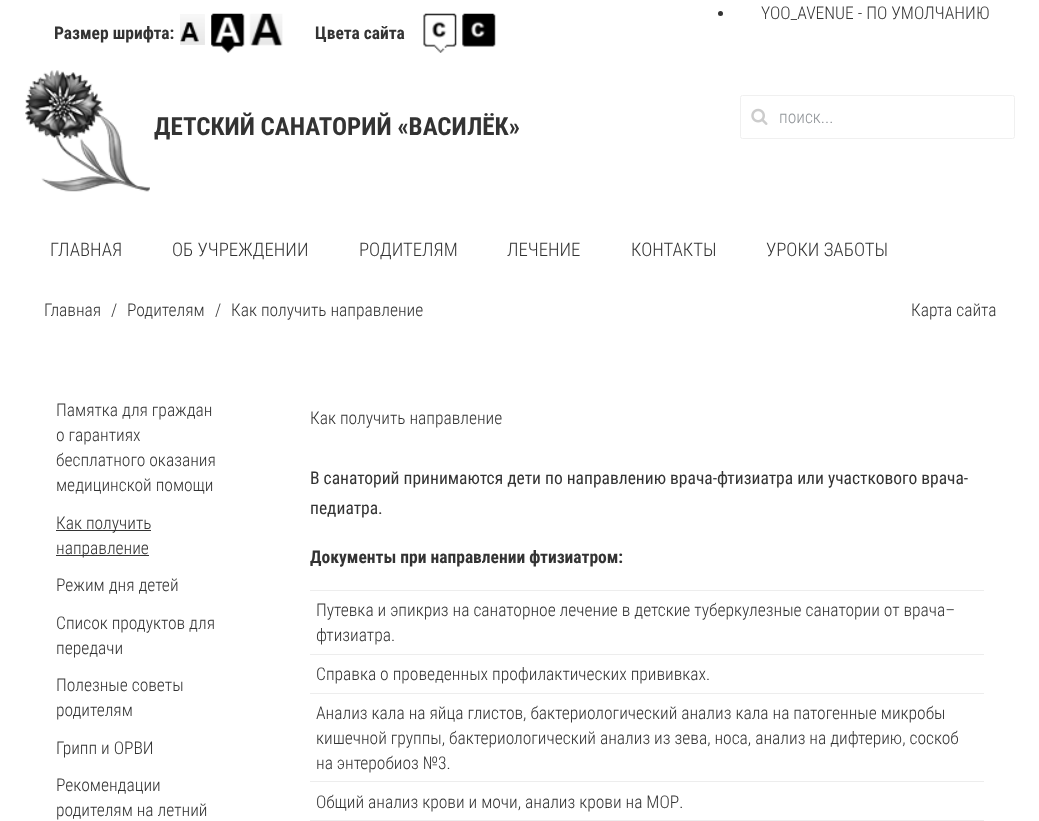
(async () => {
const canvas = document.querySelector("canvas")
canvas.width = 1039
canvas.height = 821
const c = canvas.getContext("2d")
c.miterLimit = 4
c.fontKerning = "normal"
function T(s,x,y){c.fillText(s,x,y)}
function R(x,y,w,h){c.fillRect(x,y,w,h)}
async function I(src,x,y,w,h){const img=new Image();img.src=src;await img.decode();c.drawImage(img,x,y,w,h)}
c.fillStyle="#fff"
R(0,0,1039,821)
c.fillStyle="#333"
c.beginPath()
c.arc(720.5,13.5,2.5,0,7)
c.fill()
c.font="300 17.5px Roboto Condensed"
T("YOO_AVENUE - ПО УМОЛЧАНИЮ",761,19)
await I("1.png",25,70,125,122)
c.font="bold 25px Roboto Condensed"
T("ДЕТСКИЙ САНАТОРИЙ «ВАСИЛЁК»",154,135)
c.beginPath()
c.roundRect(740.5,95.5,274,43,2)
c.strokeStyle="#f0f0f0"
c.stroke()
await I("2.png",751,108,17,17)
c.font="300 17.5px Roboto Condensed"
c.fillStyle="#92969a"
T("поиск...",779,123)
c.font="bold 17.5px Roboto Condensed"
c.fillStyle="#333"
T("Размер шрифта:",54,39)
await I("3.png",180,14,25,31)
await I("4.png",211,13,34,40)
await I("5.png",249,13,34,33)
T("Цвета сайта",315,39)
await I("6.png",423,13,34,40)
await I("7.png",462,13,34,34)
c.font="300 18.75px Roboto Condensed"
T("ГЛАВНАЯ",50,256)
T("ОБ УЧРЕЖДЕНИИ",172,256)
T("РОДИТЕЛЯМ",359,256)
T("ЛЕЧЕНИЕ",507,256)
T("КОНТАКТЫ",631,256)
T("УРОКИ ЗАБОТЫ",766,256)
c.font="300 17.5px Roboto Condensed"
T("Главная",44,316)
T("/",111,316)
T("Родителям",127,316)
T("/",215,316)
T("Как получить направление",231,316)
T("Карта сайта",911,316)
T("Памятка для граждан",56,416)
T("о гарантиях",56,441)
T("бесплатного оказания",56,466)
T("медицинской помощи",56,491)
R(56,530,95,1)
T("Как получить",56,529)
R(56,555,93,1)
T("направление",56,554)
T("Режим дня детей",56,591)
T("Список продуктов для",56,629)
T("передачи",56,654)
T("Полезные советы",56,691)
T("родителям",56,716)
T("Грипп и ОРВИ",56,754)
T("Рекомендации",56,791)
T("родителям на летний",56,816)
T("Как получить направление",310,424)
c.font="17.5px Roboto Condensed"
T("В санаторий принимаются дети по направлению врача-фтизиатра или участкового врача-",310,484)
T("педиатра.",310,514)
c.font="bold 17.5px Roboto Condensed"
T("Документы при направлении фтизиатром:",310,563)
c.fillStyle="#ededed"
R(310,590,674,1)
R(310,654,674,1)
c.font="300 17.5px Roboto Condensed"
c.fillStyle="#333"
T("Путевка и эпикриз на санаторное лечение в детские туберкулезные санатории от врача–",316,616)
T("фтизиатра.",316,641)
c.fillStyle="#ededed"
R(310,693,674,1)
c.fillStyle="#333"
T("Справка о проведенных профилактических прививках.",316,680)
c.fillStyle="#ededed"
R(310,781,674,1)
c.fillStyle="#333"
T("Анализ кала на яйца глистов, бактериологический анализ кала на патогенные микробы",316,719)
T("кишечной группы, бактериологический анализ из зева, носа, анализ на дифтерию, соскоб",316,744)
T("на энтеробиоз №3.",316,769)
c.fillStyle="#ededed"
R(310,820,674,1)
c.fillStyle="#333"
T("Общий анализ крови и мочи, анализ крови на МОР.",316,808)
})()
